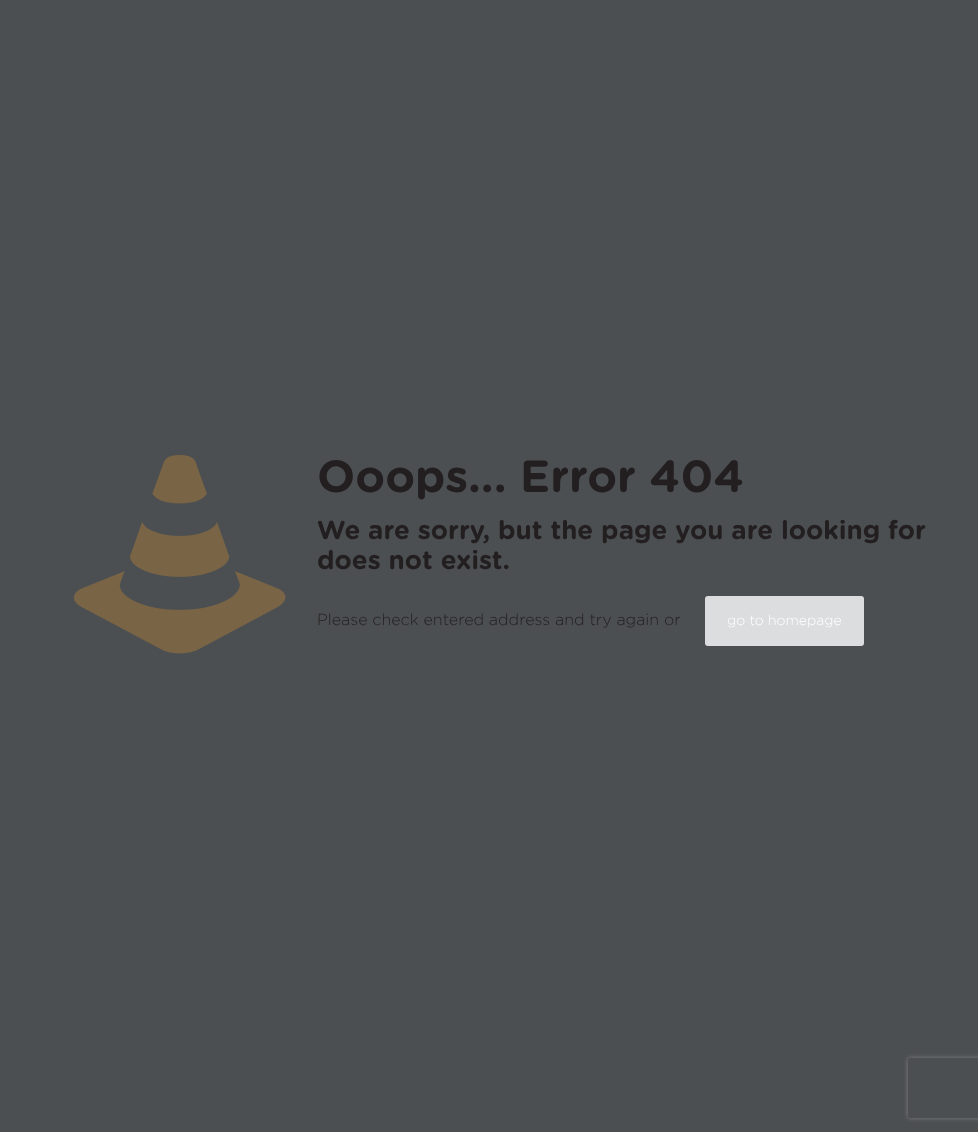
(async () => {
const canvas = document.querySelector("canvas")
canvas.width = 978
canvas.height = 1132
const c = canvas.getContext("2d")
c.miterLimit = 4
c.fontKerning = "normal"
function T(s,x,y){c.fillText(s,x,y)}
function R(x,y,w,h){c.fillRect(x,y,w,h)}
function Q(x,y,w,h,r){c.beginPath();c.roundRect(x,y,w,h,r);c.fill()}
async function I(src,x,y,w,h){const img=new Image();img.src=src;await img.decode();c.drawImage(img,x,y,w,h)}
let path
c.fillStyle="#4c4f51"
R(0,0,978,1132)
await I("1.png",74,455,212,199)
c.font="bold 45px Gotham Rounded"
c.fillStyle="#231f20"
T("Ooops... Error 404",317,492)
c.font="bold 26px Gotham Rounded"
T("We are sorry, but the page you are looking for",317,539)
T("does not exist.",317,569)
c.font="300 16px Gotham Rounded"
T("Please check entered address and try again or",317,625)
c.fillStyle="#dbdddf"
Q(705,596,159,50,3)
c.font="300 14px Gotham Rounded"
c.fillStyle="#fff"
T("go to homepage",727,625)
c.save()
path = new Path2D("M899 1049h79v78h-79zm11 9h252c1 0 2 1 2 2v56c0 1-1 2-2 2h-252c-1 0-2-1-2-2v-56c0-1 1-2 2-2z")
c.clip(path,"evenodd")
c.fillStyle="#808080"
c.filter="blur(2.5px)"
c.beginPath()
c.roundRect(908,1058,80,60,2)
c.fill()
c.filter="none"
c.restore()
})()
